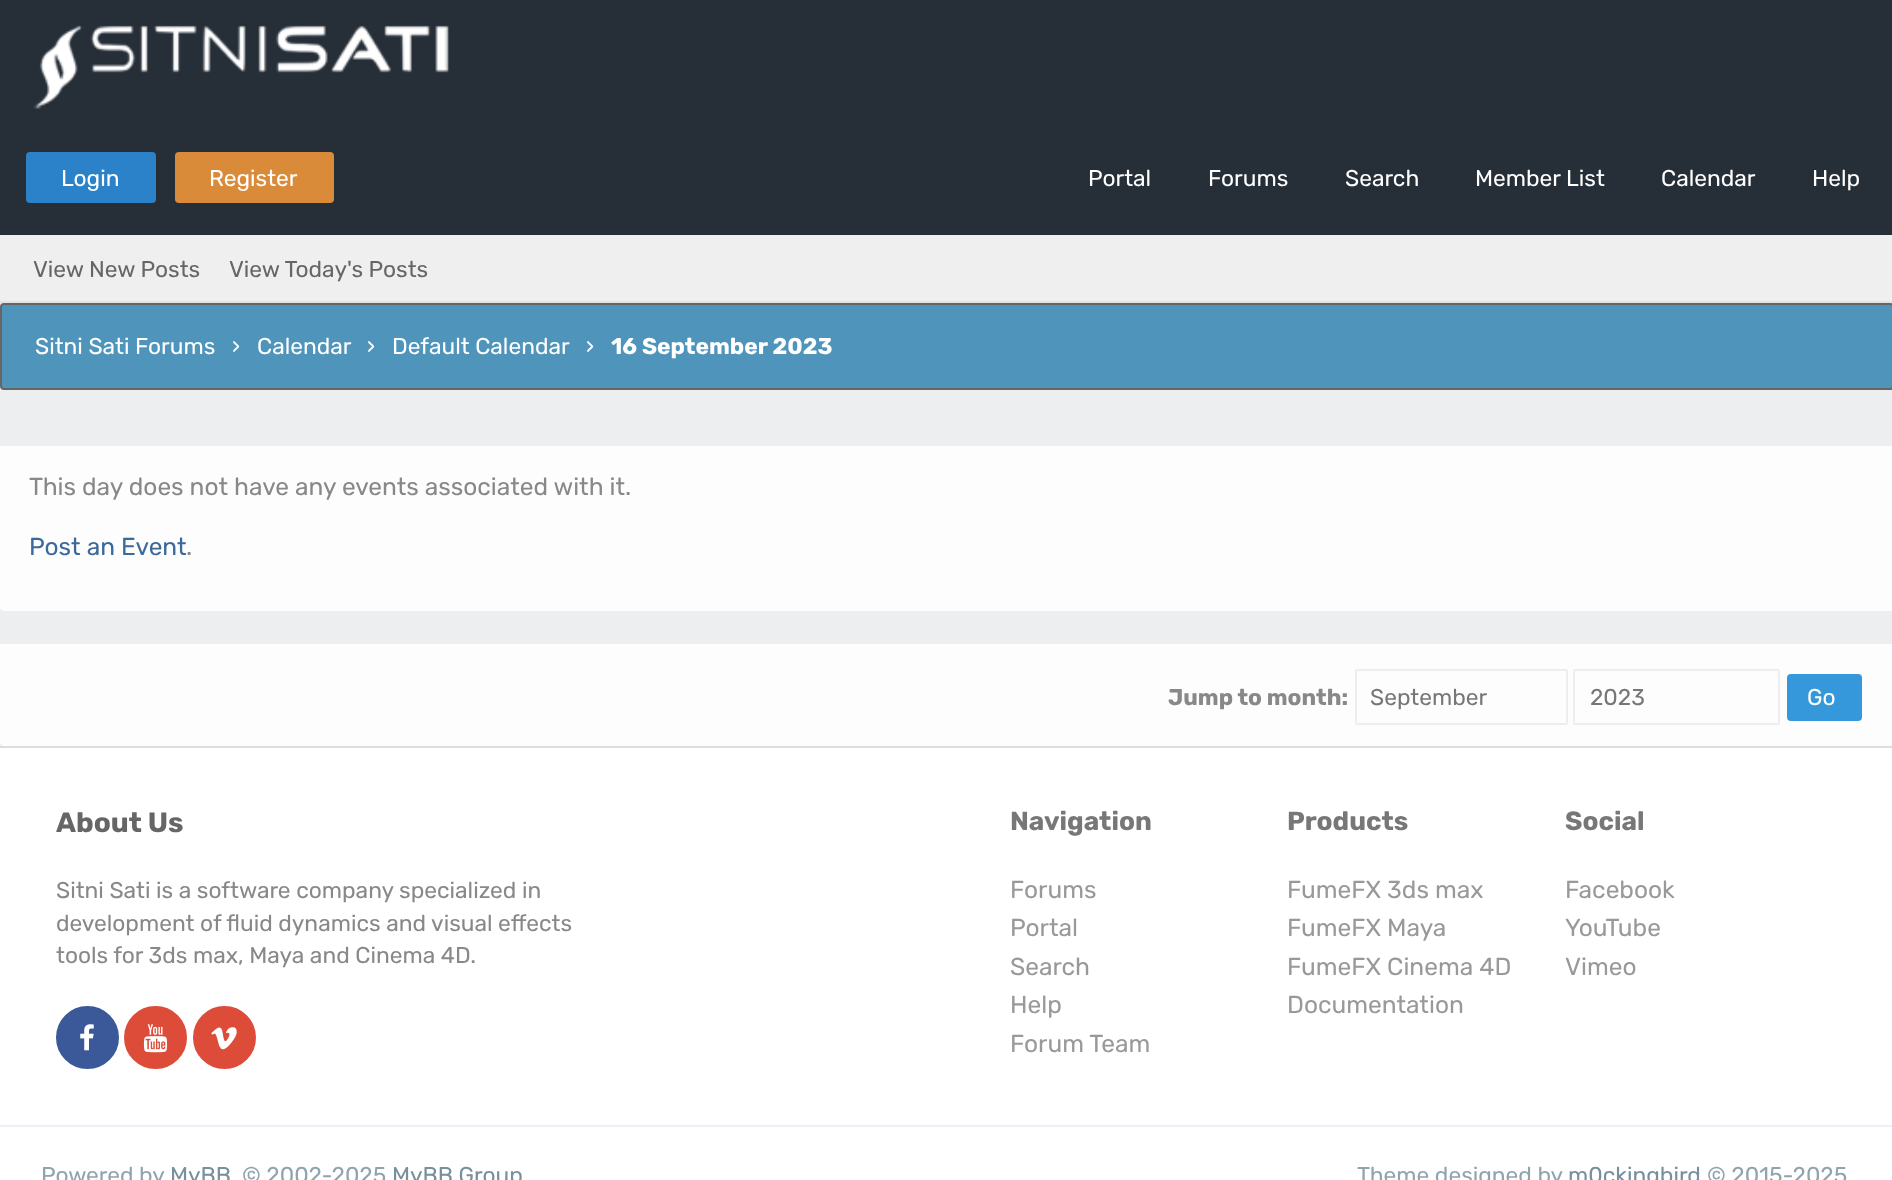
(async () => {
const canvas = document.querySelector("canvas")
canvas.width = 1892
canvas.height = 1180
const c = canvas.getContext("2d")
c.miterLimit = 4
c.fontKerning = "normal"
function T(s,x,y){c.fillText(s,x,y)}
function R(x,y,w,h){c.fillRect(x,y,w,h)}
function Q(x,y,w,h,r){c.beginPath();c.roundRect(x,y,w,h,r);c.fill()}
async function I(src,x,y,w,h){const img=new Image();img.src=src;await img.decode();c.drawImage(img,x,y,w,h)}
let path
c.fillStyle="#eceef0"
R(0,0,1892,1180)
c.fillStyle="#262e38"
R(0,0,1892,235)
await I("1.png",33,25,416,84)
c.fillStyle="#2c82c9"
Q(26,152,130,51,4)
c.font="22.75px Rubik"
c.fillStyle="#fff"
T("Login",61,186)
c.fillStyle="#d98b3a"
Q(175,152,159,51,4)
c.fillStyle="#fff"
T("Register",209,186)
T("Portal",1088,186)
T("Forums",1208,186)
T("Search",1345,186)
T("Member List",1475,186)
T("Calendar",1661,186)
T("Help",1812,186)
c.fillStyle="#efefef"
R(0,235,1892,66)
c.fillStyle="#e3e3e3"
R(0,301,1892,2)
c.fillStyle="#666"
T("View New Posts",33,277)
T("View Today's Posts",229,277)
c.fillStyle="#4f94bb"
c.beginPath()
c.roundRect(1,304,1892,85,3)
c.fill()
c.strokeStyle="#666"
c.lineWidth=2
c.stroke()
c.fillStyle="#fff"
T("Sitni Sati Forums",35,354)
T("›",232,354)
T("Calendar",257,354)
T("›",367,354)
T("Default Calendar",392,354)
T("›",586,354)
c.font="bold 22.75px Rubik"
T("16 September 2023",611,354)
c.fillStyle="#fdfdfd"
path = new Path2D("M0 446h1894v161c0 2-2 4-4 4h-1886c-2 0-4-2-4-4z")
c.fill(path)
c.font="24.5px Rubik"
c.fillStyle="#888"
T("This day does not have any events associated with it.",29,495)
c.fillStyle="#3c699c"
T("Post an Event",29,555)
c.fillStyle="#888"
T(".",186,555)
c.fillStyle="#fdfdfd"
path = new Path2D("M0 644h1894v98c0 2-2 4-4 4h-1886c-2 0-4-2-4-4z")
c.fill(path)
c.font="bold 22.75px Rubik"
c.fillStyle="#888"
T("Jump to month:",1168,705)
c.beginPath()
c.roundRect(1356,670,211,54,1)
c.strokeStyle="#eee"
c.stroke()
c.font="22.75px Rubik"
c.fillStyle="#777"
T("September",1370,705)
c.beginPath()
c.roundRect(1574,670,205,54,1)
c.stroke()
T("2023",1590,705)
c.fillStyle="#3498db"
Q(1787,674,75,47,4)
c.fillStyle="#fff"
T("Go",1807,705)
R(0,748,1892,377)
c.fillStyle="#ddd"
R(0,746,1892,2)
c.font="bold 28px Rubik"
c.fillStyle="#666"
T("About Us",56,832)
c.font="22.75px Rubik"
c.fillStyle="#888"
T("Sitni Sati is a software company specialized in",56,898)
T("development of fluid dynamics and visual effects",56,931)
T("tools for 3ds max, Maya and Cinema 4D.",56,963)
c.fillStyle="#3b5998"
c.beginPath()
c.arc(87.5,1037.5,29.5,0,7)
c.fill()
c.strokeStyle="#3b5998"
c.lineWidth=4
c.stroke()
await I("2.png",80,1024,14,27)
c.fillStyle="#dd4b39"
c.beginPath()
c.arc(155.5,1037.5,29.5,0,7)
c.fill()
c.strokeStyle="#dd4b39"
c.stroke()
await I("3.png",143,1024,25,29)
c.beginPath()
c.arc(224.5,1037.5,29.5,0,7)
c.fill()
c.stroke()
await I("4.png",211,1027,26,23)
c.font="bold 26.25px Rubik"
c.fillStyle="#777"
T("Navigation",1010,830)
c.font="24.5px Rubik"
c.fillStyle="#999"
T("Forums",1010,898)
T("Portal",1010,936)
T("Search",1010,975)
T("Help",1010,1013)
T("Forum Team",1010,1052)
c.font="bold 26.25px Rubik"
c.fillStyle="#777"
T("Products",1287,830)
c.font="24.5px Rubik"
c.fillStyle="#999"
T("FumeFX 3ds max",1287,898)
T("FumeFX Maya",1287,936)
T("FumeFX Cinema 4D",1287,975)
T("Documentation",1287,1013)
c.font="bold 26.25px Rubik"
c.fillStyle="#777"
T("Social",1565,830)
c.font="24.5px Rubik"
c.fillStyle="#999"
T("Facebook",1565,898)
T("YouTube",1565,936)
T("Vimeo",1565,975)
c.fillStyle="#fff"
R(0,1127,1892,53)
c.fillStyle="#ebf1f7"
R(0,1125,1892,2)
c.font="22.75px Rubik"
c.fillStyle="#90a4ae"
T("Powered by",41,1183)
c.fillStyle="#78909c"
T("MyBB",170,1183)
c.fillStyle="#90a4ae"
T("© 2002-2025",242,1183)
c.fillStyle="#78909c"
T("MyBB Group",392,1183)
c.fillStyle="#90a4ae"
T("Theme designed by",1357,1183)
c.fillStyle="#78909c"
T("m0ckingbird",1568,1183)
c.fillStyle="#90a4ae"
T("© 2015-2025",1707,1183)
})()
